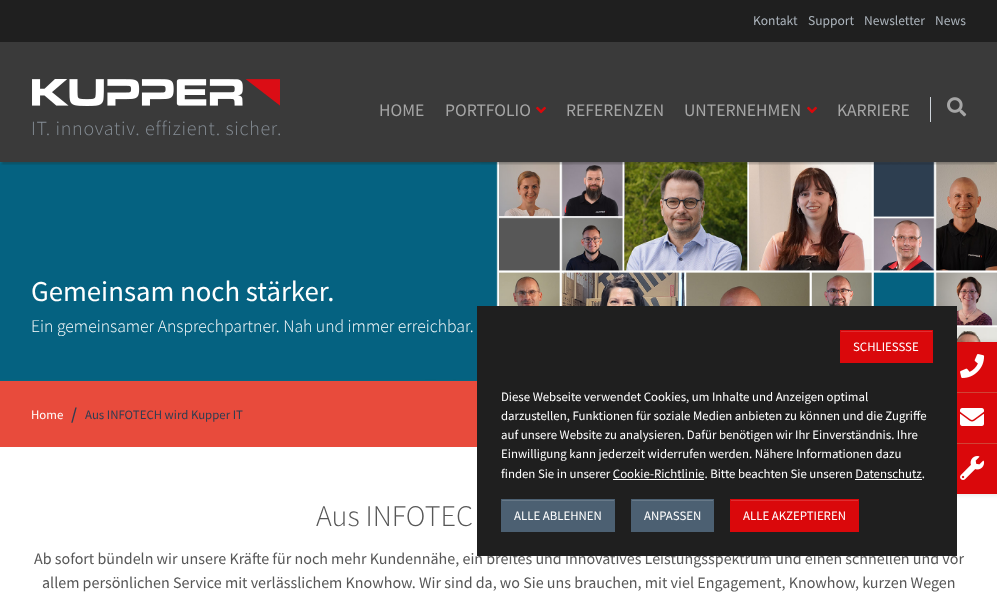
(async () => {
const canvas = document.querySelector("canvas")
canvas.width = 997
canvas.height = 596
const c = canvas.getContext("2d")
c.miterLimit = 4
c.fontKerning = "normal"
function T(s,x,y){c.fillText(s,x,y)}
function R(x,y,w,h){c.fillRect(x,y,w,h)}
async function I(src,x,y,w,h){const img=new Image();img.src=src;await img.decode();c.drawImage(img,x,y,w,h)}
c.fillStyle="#fff"
R(0,0,997,596)
c.fillStyle="#1f1f1f"
R(0,0,997,42)
c.font="13.5px Source Sans Pro"
c.fillStyle="#adb5bd"
T("Kontakt",753,25)
T("Support",808,25)
T("Newsletter",864,25)
T("News",935,25)
c.fillStyle="#3a3a3a"
R(0,42,997,120)
await I("1.png",536,106,10,8)
await I("1.png",807,106,10,8)
c.fillStyle="#ced4da"
R(930,97,1,25)
await I("2.png",947,97,20,20)
await I("3.png",32,79,248,27)
await I("4.png",0,162,997,219)
c.save()
c.beginPath()
c.rect(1,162,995,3)
c.clip()
c.fillStyle="#1e1e1e4d"
c.filter="blur(1px)"
c.beginPath()
c.rect(2,48,993,116)
c.fill()
c.filter="none"
c.restore()
c.font="17.6px Source Sans Pro"
c.fillStyle="#a6a6a6"
T("HOME",379,116)
T("PORTFOLIO",445,116)
T("REFERENZEN",566,116)
T("UNTERNEHMEN",684,116)
T("KARRIERE",837,116)
c.letterSpacing="0.7px"
c.font="300 20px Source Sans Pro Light"
c.fillStyle="#868e96"
T("IT. innovativ. effizient. sicher.",31,135)
c.letterSpacing="0px"
c.font="28.75px Source Sans Pro"
c.fillStyle="#fff"
T("Gemeinsam noch stärker.",31,301)
c.font="300 17.6px Source Sans Pro Light"
T("Ein gemeinsamer Ansprechpartner. Nah und immer erreichbar.",31,332)
c.fillStyle="#e84b3c"
R(0,381,997,66)
c.font="12.8px Source Sans Pro"
c.fillStyle="#fff"
T("Home",31,419)
c.font="600 17.6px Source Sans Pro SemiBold"
c.fillStyle="#2e3d52"
T("/",71,420)
c.font="12.8px Source Sans Pro"
T("Aus INFOTECH wird Kupper IT",85,419)
c.font="300 30px Source Sans Pro Light"
c.fillStyle="#575757"
T("Aus INFOTEC",316,526)
c.font="16px Source Sans Pro"
T("Ab sofort bündeln wir unsere Kräfte für noch mehr Kundennähe, ein breites und innovatives Leistungsspektrum und einen schnellen und vor",34,564)
T("allem persönlichen Service mit verlässlichem Knowhow. Wir sind da, wo Sie uns brauchen, mit viel Engagement, Knowhow, kurzen Wegen",42,588)
c.fillStyle="#0000001a"
c.filter="blur(2.5px)"
c.beginPath()
c.rect(947,342,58,153)
c.fill()
c.filter="none"
c.fillStyle="#da080b"
R(957,342,40,50)
await I("5.png",960,354,25,24)
R(957,393,40,50)
await I("6.png",960,408,24,18)
R(957,444,40,50)
await I("7.png",960,456,25,24)
c.fillStyle="#1f1f1f"
R(477,306,480,250)
c.fillStyle="#da080b"
R(840,330,93,33)
c.fillStyle="#e02d30"
R(841,331,91,1)
c.font="12.8px Source Sans Pro"
c.fillStyle="#fff"
T("SCHLIESSSE",853,351)
T("Diese Webseite verwendet Cookies, um Inhalte und Anzeigen optimal",501,401)
T("darzustellen, Funktionen für soziale Medien anbieten zu können und die Zugriffe",501,420)
T("auf unsere Website zu analysieren. Dafür benötigen wir Ihr Einverständnis. Ihre",501,439)
T("Einwilligung kann jederzeit widerrufen werden. Nähere Informationen dazu",501,458)
T("finden Sie in unserer Cookie-Richtlinie. Bitte beachten Sie unseren Datenschutz.",501,478)
R(613,479,91,1)
R(855,479,67,1)
c.fillStyle="#4c6072"
R(501,499,114,33)
c.fillStyle="#677887"
R(502,500,112,1)
c.fillStyle="#fff"
T("ALLE ABLEHNEN",514,520)
c.fillStyle="#4c6072"
R(631,499,83,33)
c.fillStyle="#677887"
R(632,500,81,1)
c.fillStyle="#fff"
T("ANPASSEN",644,520)
c.fillStyle="#da080b"
R(730,499,129,33)
c.fillStyle="#e02d30"
R(731,500,127,1)
c.fillStyle="#fff"
T("ALLE AKZEPTIEREN",743,520)
})()
